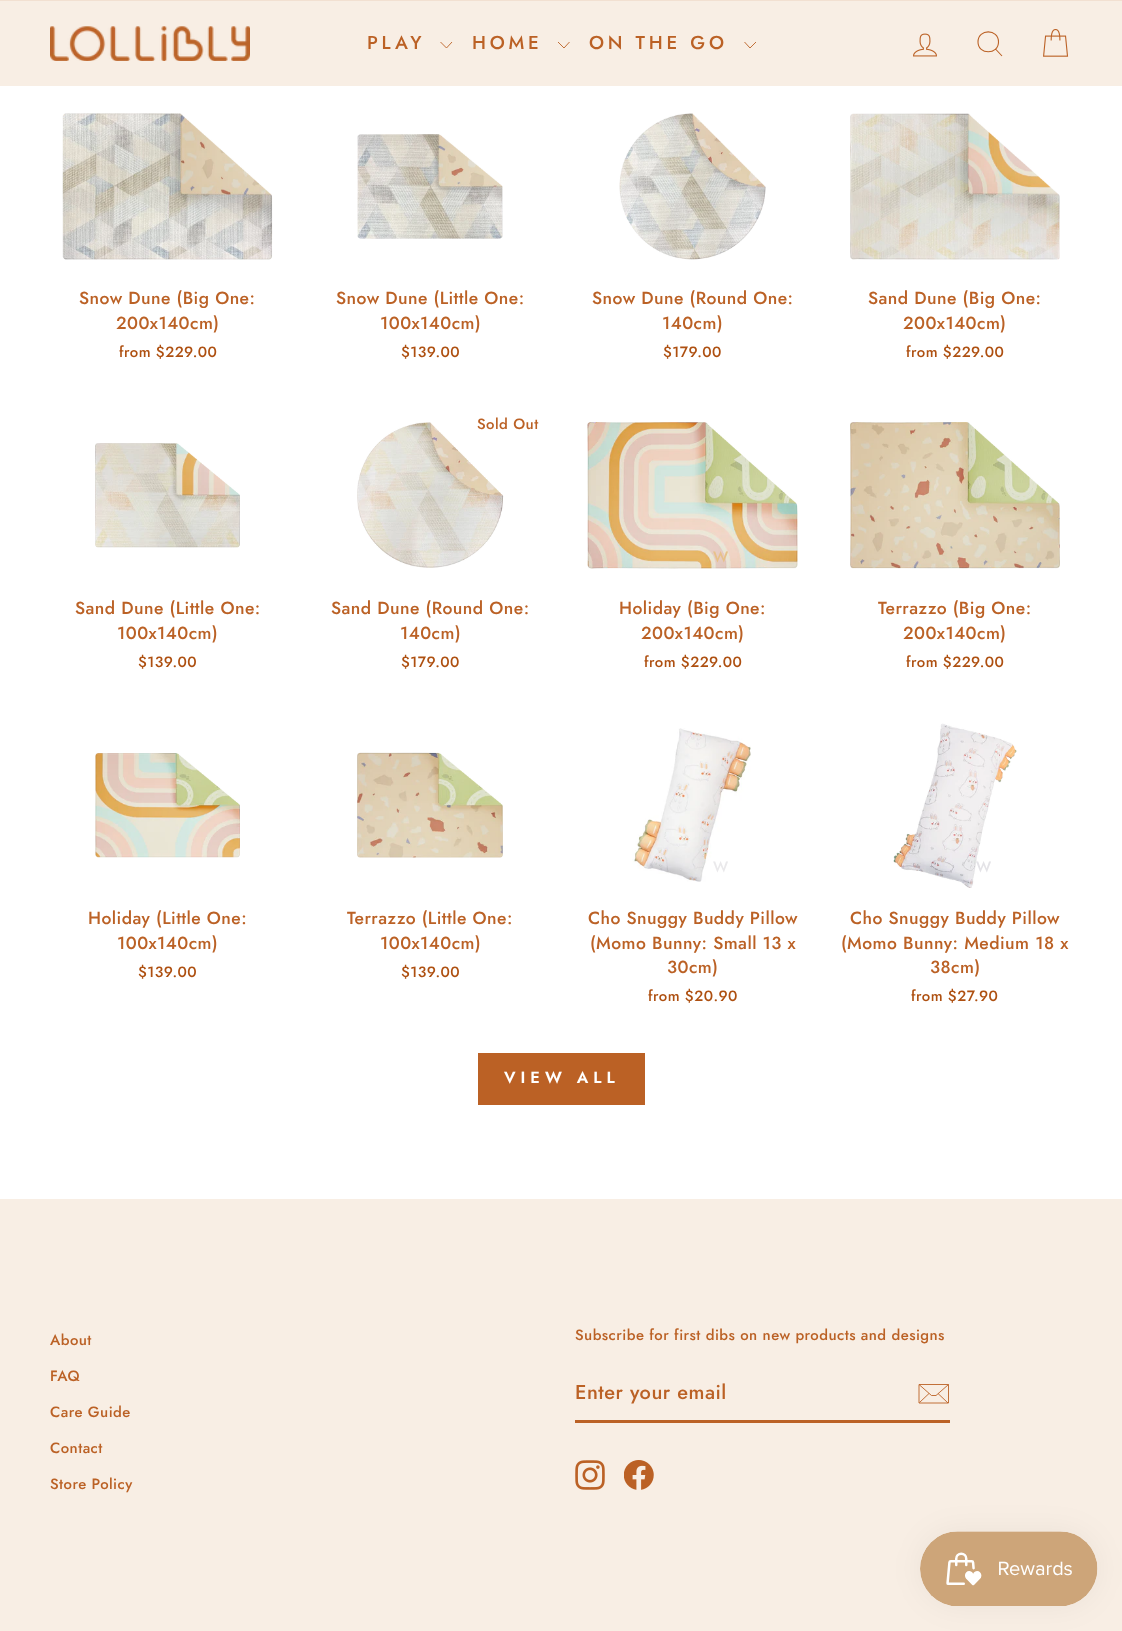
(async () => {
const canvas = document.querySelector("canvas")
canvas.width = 1122
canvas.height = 1631
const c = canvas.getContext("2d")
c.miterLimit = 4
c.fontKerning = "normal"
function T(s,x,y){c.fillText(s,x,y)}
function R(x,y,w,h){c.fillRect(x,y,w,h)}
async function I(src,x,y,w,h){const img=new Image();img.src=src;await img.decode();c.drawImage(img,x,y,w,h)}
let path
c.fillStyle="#fff"
R(0,0,1122,1631)
c.fillStyle="#f8eee4"
R(0,1,1122,85)
c.fillStyle="#f2e0d1"
R(0,0,1122,1)
await I("1.png",50,26,200,35)
c.letterSpacing="3.75px"
c.font="500 18.75px Jost"
c.fillStyle="#bb6125"
T("PLAY",367,49)
path = new Path2D("M440.5 42l6 6l5.5-6")
c.strokeStyle="#bb6125"
c.lineWidth=0.9
c.stroke(path)
T("HOME",472,49)
path = new Path2D("M558 42l6 6l5.5-6")
c.stroke(path)
T("ON THE GO",589,49)
path = new Path2D("M744.5 42l5.5 6l6-6")
c.stroke(path)
await I("2.png",913,33,24,24)
path = new Path2D("M998.5 42c0 13-20.5 13-20.5 0c0-13.5 20.5-13.5 20.5 0zm3.5 14l-6.5-7")
c.lineWidth=1.1
c.stroke(path)
await I("3.png",1043,29,26,28)
await I("4.png",62,113,211,147)
c.letterSpacing="0.45px"
c.font="500 17.5px Jost"
T("Snow Dune (Big One:",79,304)
T("200x140cm)",116,329)
c.font="500 14.9px Jost"
c.fillStyle="#ae5011"
T("from $229.00",119,357)
await I("5.png",357,134,146,105)
c.font="500 17.5px Jost"
c.fillStyle="#bb6125"
T("Snow Dune (Little One:",336,304)
T("100x140cm)",380,329)
c.font="500 14.9px Jost"
c.fillStyle="#ae5011"
T("$139.00",401,357)
await I("6.png",619,113,147,147)
c.font="500 17.5px Jost"
c.fillStyle="#bb6125"
T("Snow Dune (Round One:",592,304)
T("140cm)",662,329)
c.font="500 14.9px Jost"
c.fillStyle="#ae5011"
T("$179.00",663,357)
await I("7.png",850,113,210,147)
c.font="500 17.5px Jost"
c.fillStyle="#bb6125"
T("Sand Dune (Big One:",868,304)
T("200x140cm)",903,329)
c.font="500 14.9px Jost"
c.fillStyle="#ae5011"
T("from $229.00",906,357)
await I("8.png",95,443,145,105)
c.font="500 17.5px Jost"
c.fillStyle="#bb6125"
T("Sand Dune (Little One:",75,614)
T("100x140cm)",117,639)
c.font="500 14.9px Jost"
c.fillStyle="#ae5011"
T("$139.00",138,667)
await I("9.png",357,422,147,146)
c.fillStyle="#bb6125"
T("Sold Out",477,429)
c.font="500 17.5px Jost"
T("Sand Dune (Round One:",331,614)
T("140cm)",400,639)
c.font="500 14.9px Jost"
c.fillStyle="#ae5011"
T("$179.00",401,667)
await I("10.png",587,422,211,147)
c.letterSpacing="0px"
c.fillStyle="#e7c189"
T("W",713,562)
c.letterSpacing="0.45px"
c.font="500 17.5px Jost"
c.fillStyle="#bb6125"
T("Holiday (Big One:",619,614)
T("200x140cm)",641,639)
c.font="500 14.9px Jost"
c.fillStyle="#ae5011"
T("from $229.00",644,667)
await I("11.png",850,422,210,147)
c.font="500 17.5px Jost"
c.fillStyle="#bb6125"
T("Terrazzo (Big One:",878,614)
T("200x140cm)",903,639)
c.font="500 14.9px Jost"
c.fillStyle="#ae5011"
T("from $229.00",906,667)
await I("12.png",95,753,145,105)
c.font="500 17.5px Jost"
c.fillStyle="#bb6125"
T("Holiday (Little One:",88,924)
T("100x140cm)",117,949)
c.font="500 14.9px Jost"
c.fillStyle="#ae5011"
T("$139.00",138,977)
await I("13.png",357,752,146,106)
c.font="500 17.5px Jost"
c.fillStyle="#bb6125"
T("Terrazzo (Little One:",347,924)
T("100x140cm)",380,949)
c.font="500 14.9px Jost"
c.fillStyle="#ae5011"
T("$139.00",401,977)
await I("14.png",632,728,119,154)
c.letterSpacing="0px"
c.fillStyle="#eae9eb"
T("W",713,872)
c.letterSpacing="0.45px"
c.font="500 17.5px Jost"
c.fillStyle="#bb6125"
T("Cho Snuggy Buddy Pillow",588,924)
T("(Momo Bunny: Small 13 x",590,949)
T("30cm)",667,973)
c.font="500 14.9px Jost"
c.fillStyle="#ae5011"
T("from $20.90",648,1001)
await I("15.png",893,723,124,165)
c.letterSpacing="0px"
c.fillStyle="#e4e3e7"
T("W",976,872)
c.letterSpacing="0.45px"
c.font="500 17.5px Jost"
c.fillStyle="#bb6125"
T("Cho Snuggy Buddy Pillow",850,924)
T("(Momo Bunny: Medium 18 x",841,949)
T("38cm)",930,973)
c.font="500 14.9px Jost"
c.fillStyle="#ae5011"
T("from $27.90",911,1001)
c.fillStyle="#bb6125"
R(478,1053,167,52)
c.letterSpacing="5px"
c.font="600 16.25px Jost"
c.fillStyle="#fff"
T("VIEW ALL",504,1083)
c.fillStyle="#f8eee4"
R(0,1199,1122,432)
c.letterSpacing="0.45px"
c.font="500 14.9px Jost"
c.fillStyle="#bb6125"
T("About",50,1345)
T("FAQ",50,1381)
T("Care Guide",50,1417)
T("Contact",50,1453)
T("Store Policy",50,1489)
T("Subscribe for first dibs on new products and designs",575,1340)
R(575,1420,375,3)
c.letterSpacing="0.5px"
c.font="500 20px Jost"
T("Enter your email",575,1399)
path = new Path2D("M948.5 1403h-29.5v-18.5h29.5zm-29.5-18.5l12.5 11h4.5l12.5-11m-19.5 9l-9.5 9m28.5 .5l-10-9.5")
c.lineWidth=0.9
c.stroke(path)
await I("16.png",575,1460,30,30)
await I("17.png",624,1460,30,30)
c.fillStyle="#0000000d"
c.filter="blur(15.5px)"
c.beginPath()
c.roundRect(920,1531,178,75,37.5)
c.fill()
c.filter="none"
await I("18.png",920,1531,178,75)
})()
